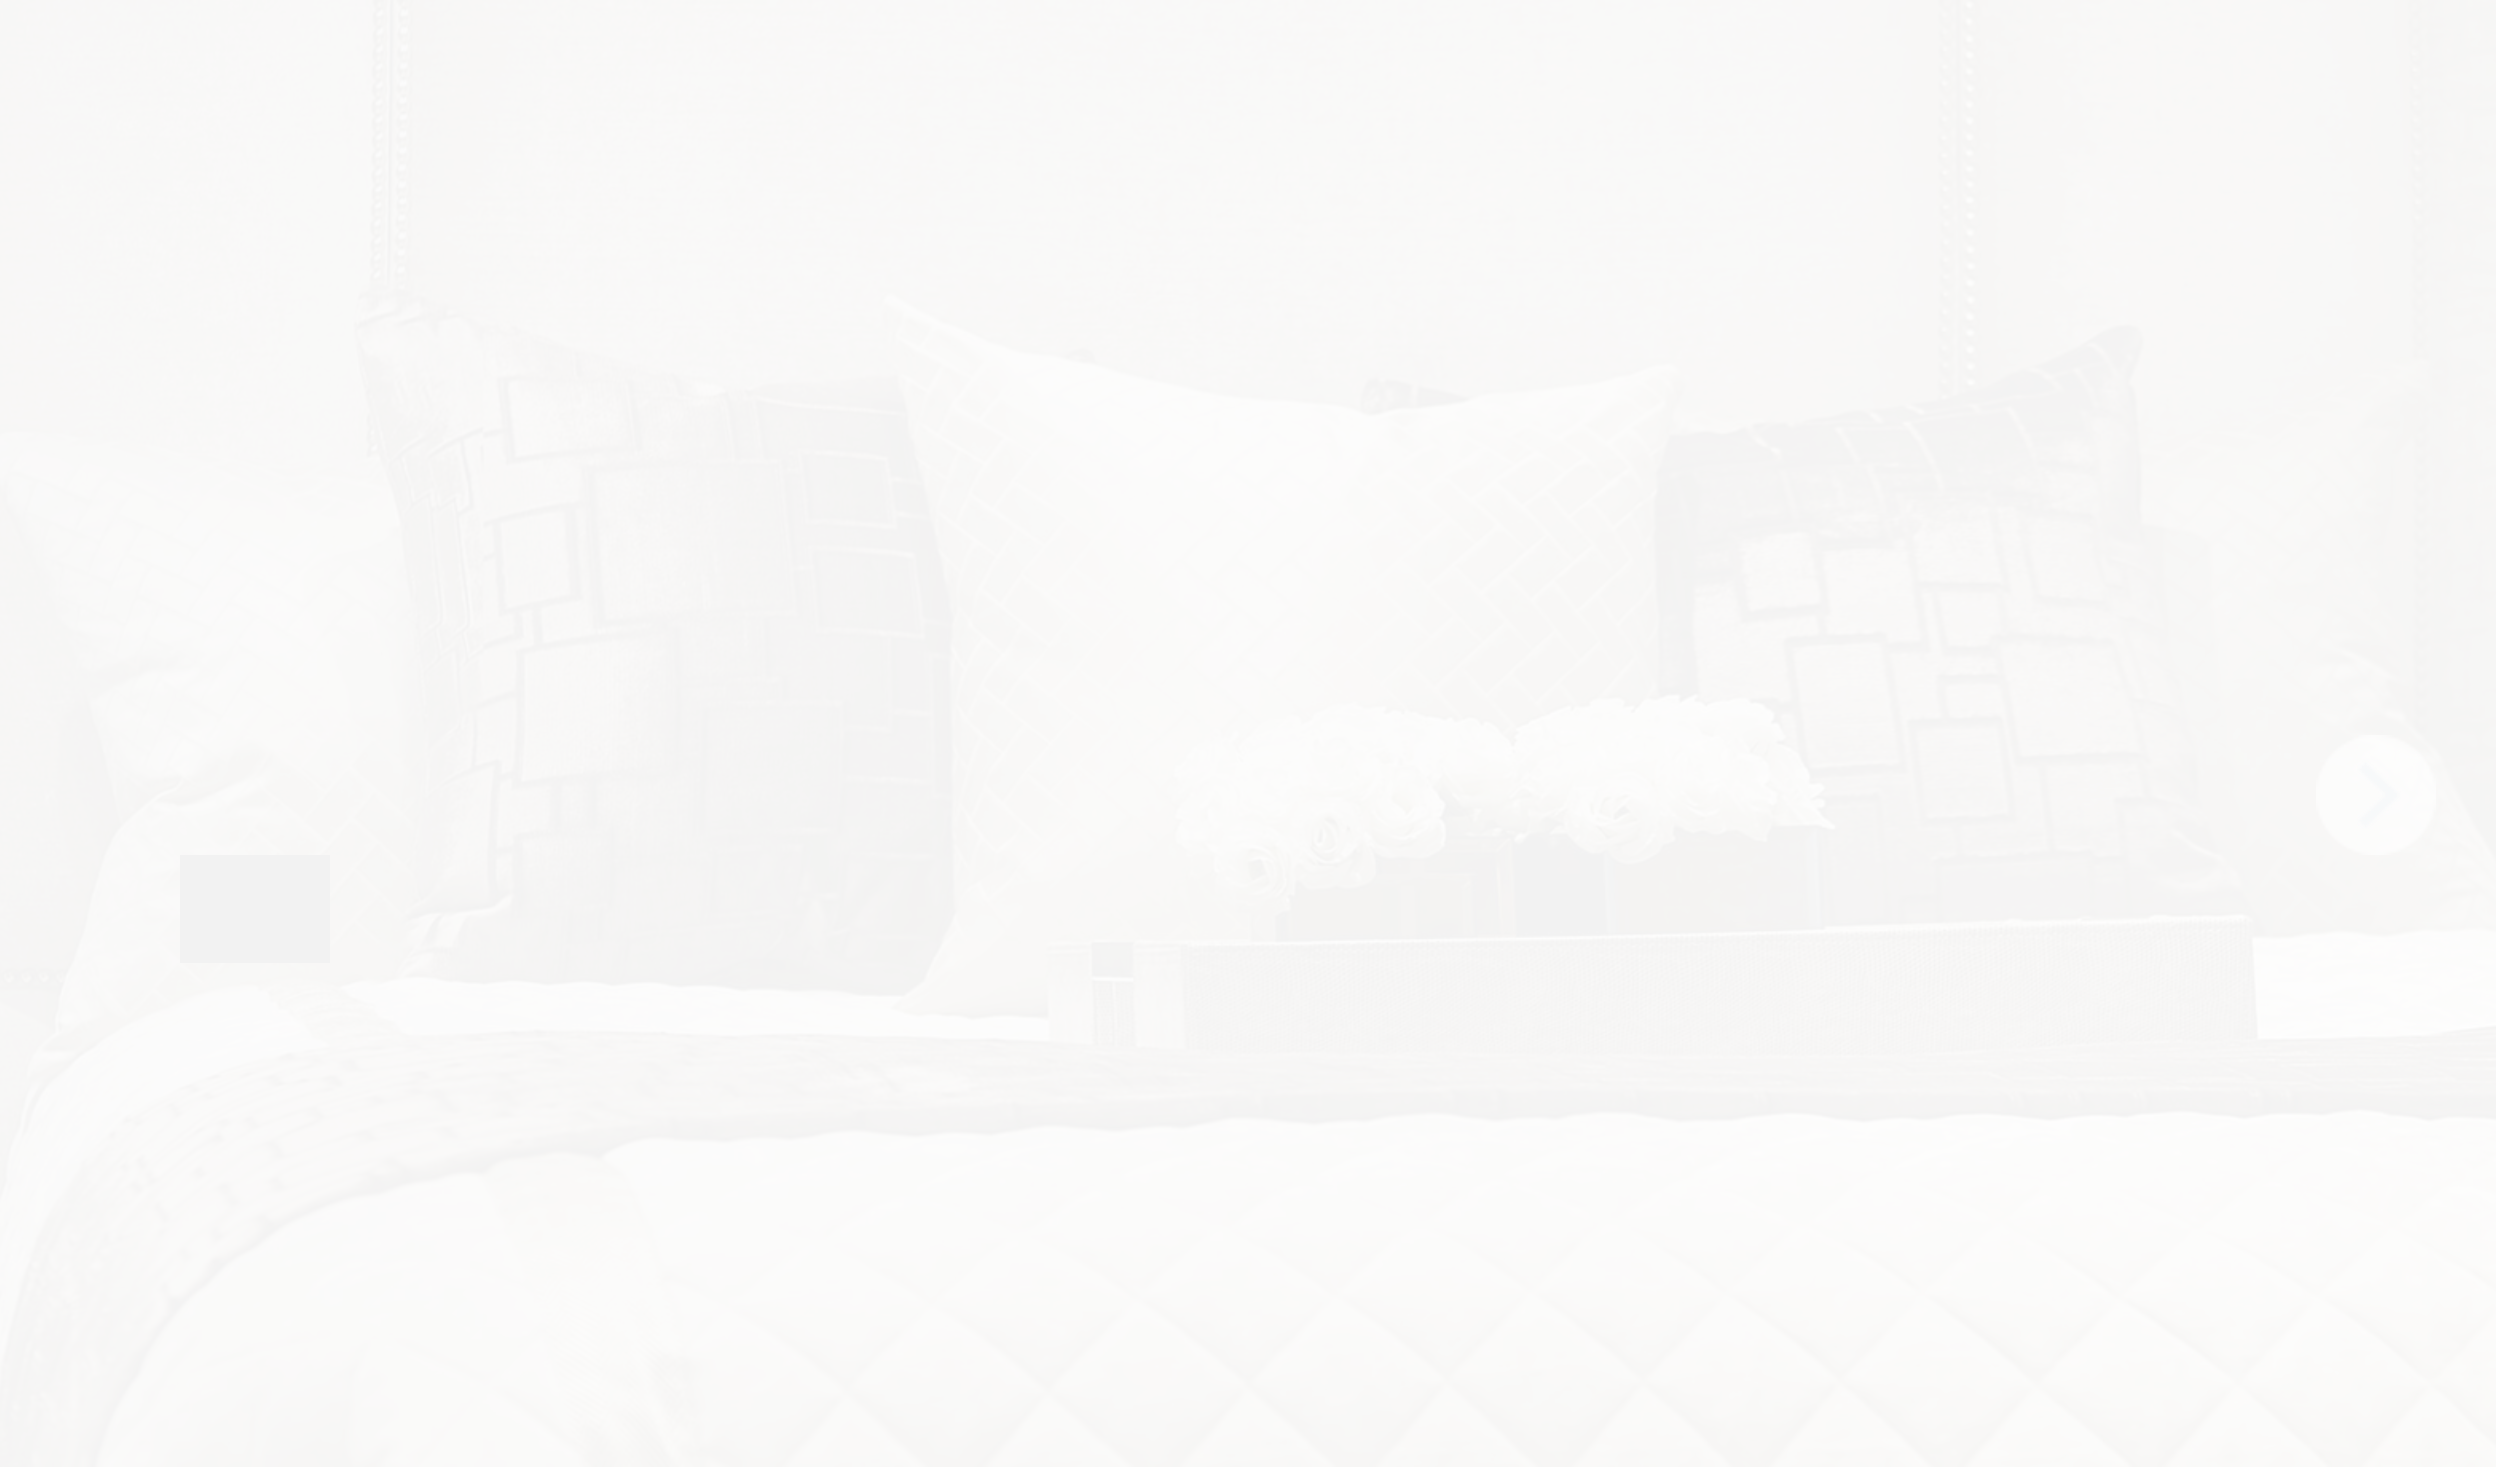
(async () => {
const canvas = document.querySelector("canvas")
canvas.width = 2496
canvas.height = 1467
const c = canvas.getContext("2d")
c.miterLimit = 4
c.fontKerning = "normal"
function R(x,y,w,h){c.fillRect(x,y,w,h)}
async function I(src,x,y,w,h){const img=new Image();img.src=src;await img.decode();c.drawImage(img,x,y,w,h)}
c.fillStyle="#fff"
R(0,0,2496,1467)
await I("1.png",0,0,2496,1467)
await I("2.png",2316,735,120,120)
c.fillStyle="#f2f2f2"
R(180,855,150,108)
})()
